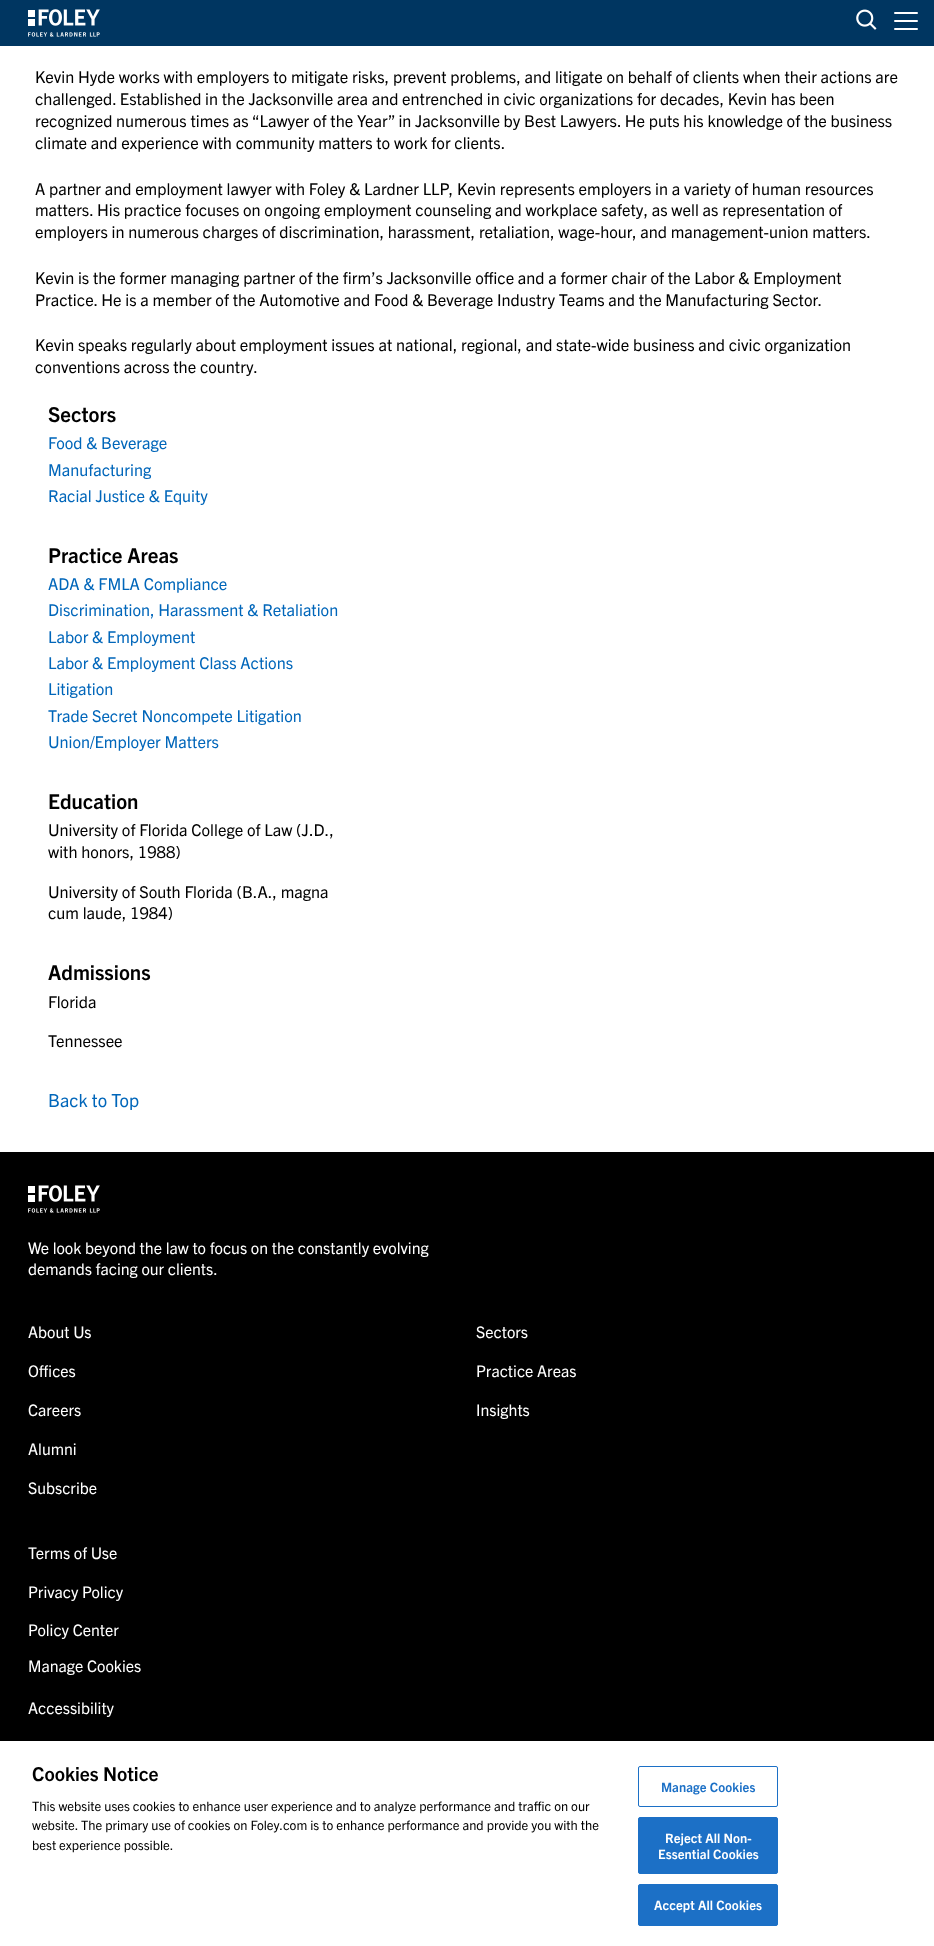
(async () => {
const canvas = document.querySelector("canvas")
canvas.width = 934
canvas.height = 1946
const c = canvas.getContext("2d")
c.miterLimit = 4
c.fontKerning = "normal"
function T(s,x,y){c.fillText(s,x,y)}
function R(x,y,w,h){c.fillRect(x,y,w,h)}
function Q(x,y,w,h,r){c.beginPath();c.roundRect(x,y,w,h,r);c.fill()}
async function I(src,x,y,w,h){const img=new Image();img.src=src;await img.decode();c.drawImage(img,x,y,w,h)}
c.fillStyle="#fff"
R(0,0,934,1946)
c.fillStyle="#003661"
R(0,0,934,46)
await I("1.png",28,9,72,28)
await I("2.png",856,9,21,21)
c.fillStyle="#fff"
Q(894,12,24,2,1)
Q(894,20,24,2,1)
Q(894,28,24,2,1)
c.font="16.35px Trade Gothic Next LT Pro"
c.fillStyle="#000"
T("Kevin Hyde works with employers to mitigate risks, prevent problems, and litigate on behalf of clients when their actions are",35,83)
T("challenged. Established in the Jacksonville area and entrenched in civic organizations for decades, Kevin has been",35,105)
T("recognized numerous times as “Lawyer of the Year” in Jacksonville by Best Lawyers. He puts his knowledge of the business",35,127)
T("climate and experience with community matters to work for clients.",35,149)
T("A partner and employment lawyer with Foley & Lardner LLP, Kevin represents employers in a variety of human resources",35,195)
T("matters. His practice focuses on ongoing employment counseling and workplace safety, as well as representation of",35,216)
T("employers in numerous charges of discrimination, harassment, retaliation, wage-hour, and management-union matters.",35,238)
T("Kevin is the former managing partner of the firm’s Jacksonville office and a former chair of the Labor & Employment",35,284)
T("Practice. He is a member of the Automotive and Food & Beverage Industry Teams and the Manufacturing Sector.",35,306)
T("Kevin speaks regularly about employment issues at national, regional, and state-wide business and civic organization",35,351)
T("conventions across the country.",35,373)
c.font="bold 20.5px Trade Gothic Next LT Pro"
T("Sectors",48,422)
c.font="16.35px Trade Gothic Next LT Pro"
c.fillStyle="#0066ba"
T("Food & Beverage",48,449)
T("Manufacturing",48,476)
T("Racial Justice & Equity",48,502)
c.font="bold 20.5px Trade Gothic Next LT Pro"
c.fillStyle="#000"
T("Practice Areas",48,563)
c.font="16.35px Trade Gothic Next LT Pro"
c.fillStyle="#0066ba"
T("ADA & FMLA Compliance",48,590)
T("Discrimination, Harassment & Retaliation",48,616)
T("Labor & Employment",48,643)
T("Labor & Employment Class Actions",48,669)
T("Litigation",48,695)
T("Trade Secret Noncompete Litigation",48,722)
T("Union/Employer Matters",48,748)
c.font="bold 20.5px Trade Gothic Next LT Pro"
c.fillStyle="#000"
T("Education",48,809)
c.font="16.35px Trade Gothic Next LT Pro"
T("University of Florida College of Law (J.D.,",48,836)
T("with honors, 1988)",48,858)
T("University of South Florida (B.A., magna",48,898)
T("cum laude, 1984)",48,919)
c.font="bold 20.5px Trade Gothic Next LT Pro"
T("Admissions",48,980)
c.font="16.35px Trade Gothic Next LT Pro"
T("Florida",48,1008)
T("Tennessee",48,1047)
c.font="18px Trade Gothic Next LT Pro"
c.fillStyle="#0066ba"
T("Back to Top",48,1107)
c.fillStyle="#000"
R(0,1152,934,589)
await I("3.png",28,1185,72,28)
c.font="16px Trade Gothic Next LT Pro"
c.fillStyle="#fff"
T("We look beyond the law to focus on the constantly evolving",28,1254)
T("demands facing our clients.",28,1275)
T("About Us",28,1338)
T("Offices",28,1377)
T("Careers",28,1416)
T("Alumni",28,1455)
T("Subscribe",28,1494)
T("Sectors",476,1338)
T("Practice Areas",476,1377)
T("Insights",476,1416)
T("Terms of Use",28,1559)
T("Privacy Policy",28,1598)
T("Policy Center",28,1636)
T("Manage Cookies",28,1672)
T("Accessibility",28,1714)
c.font="bold 19.25px Trade Gothic Next LT Pro"
c.fillStyle="#000"
T("Cookies Notice",32,1781)
c.font="13px Trade Gothic Next LT Pro"
T("This website uses cookies to enhance user experience and to analyze performance and traffic on our",32,1811)
T("website. The primary use of cookies on Foley.com is to enhance performance and provide you with the",32,1830)
T("best experience possible.",32,1850)
c.beginPath()
c.roundRect(638.5,1766.5,139,40,1.5)
c.strokeStyle="#1c70c6"
c.stroke()
c.letterSpacing="0.1px"
c.font="bold 13px Trade Gothic Next LT Pro"
c.fillStyle="#1c70c6"
T("Manage Cookies",661,1792)
c.beginPath()
c.roundRect(638.5,1817.5,139,56,1.5)
c.fill()
c.stroke()
c.fillStyle="#fff"
T("Reject All Non-",665,1843)
T("Essential Cookies",658,1859)
c.fillStyle="#1c70c6"
c.beginPath()
c.roundRect(638.5,1884.5,139,41,1.5)
c.fill()
c.stroke()
c.fillStyle="#fff"
T("Accept All Cookies",654,1910)
})()
